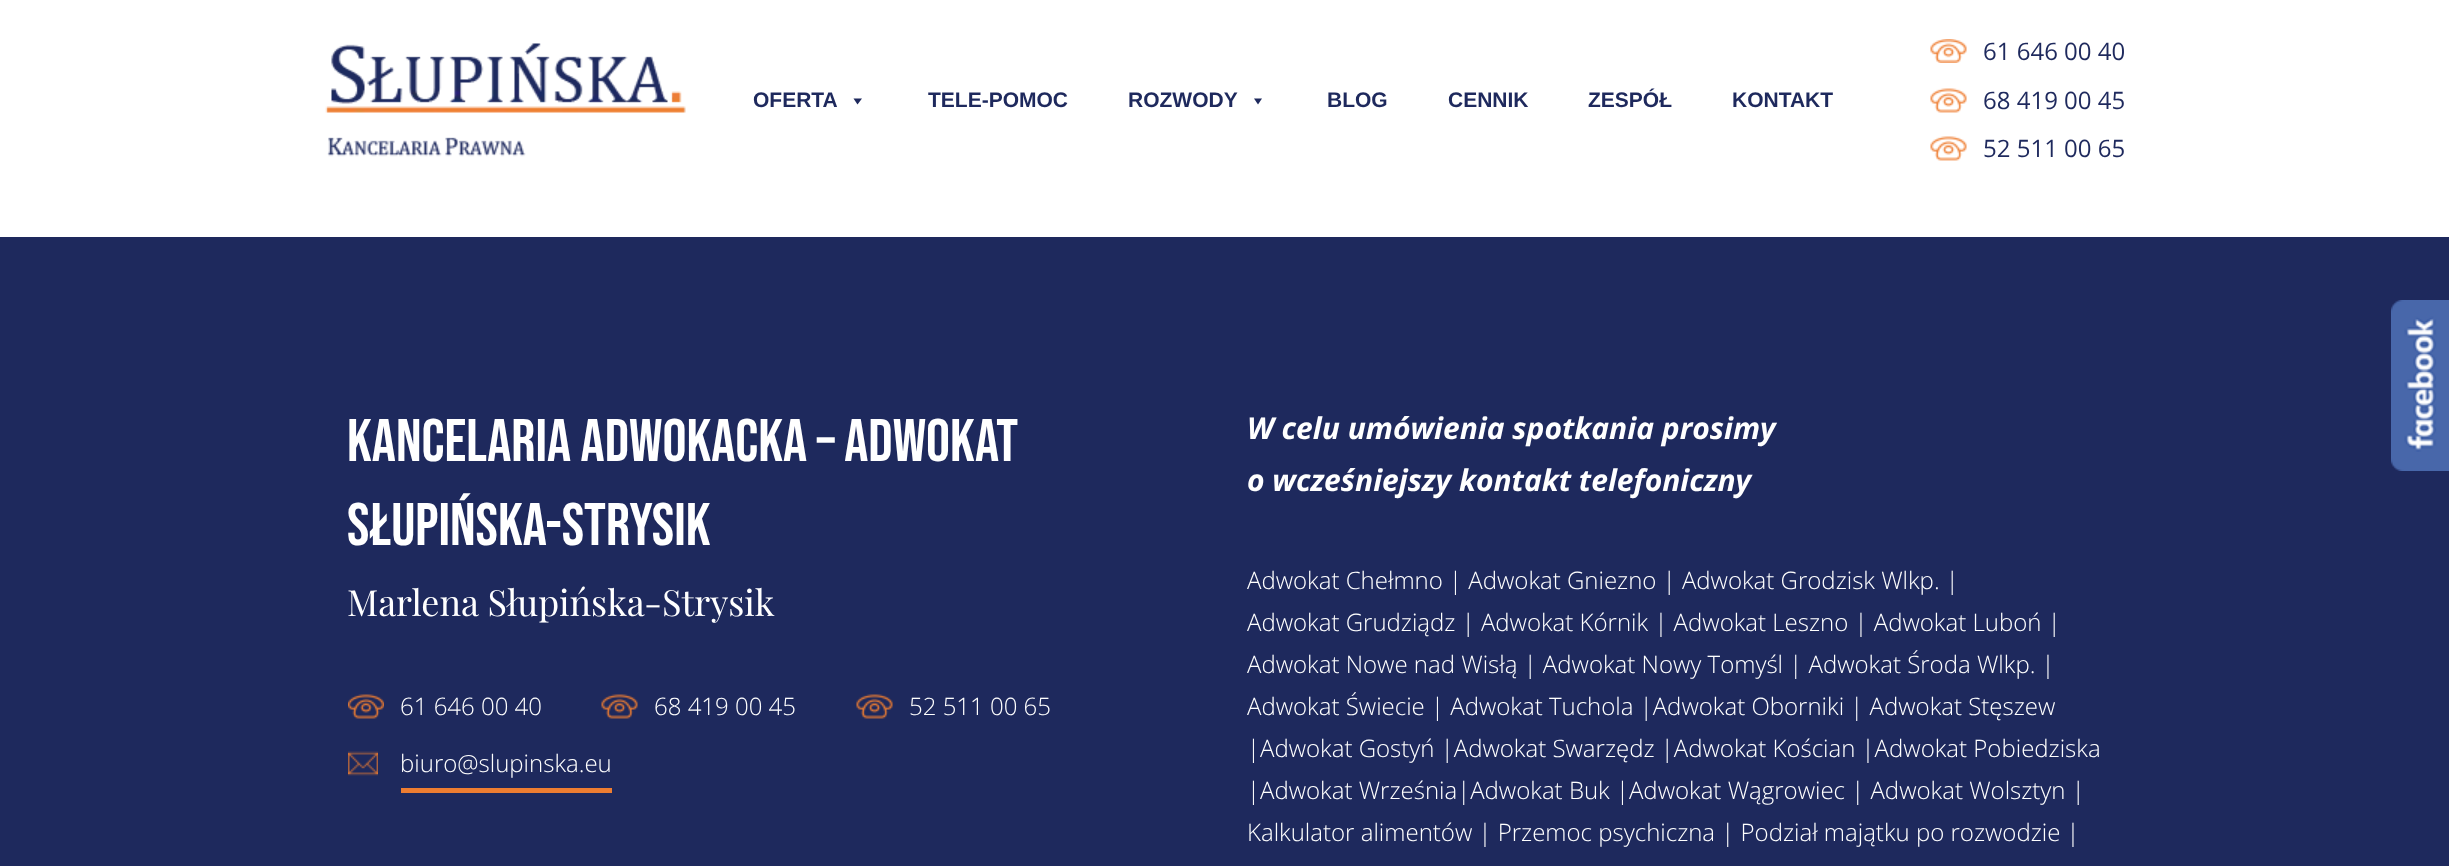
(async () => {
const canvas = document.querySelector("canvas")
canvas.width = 2449
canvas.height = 866
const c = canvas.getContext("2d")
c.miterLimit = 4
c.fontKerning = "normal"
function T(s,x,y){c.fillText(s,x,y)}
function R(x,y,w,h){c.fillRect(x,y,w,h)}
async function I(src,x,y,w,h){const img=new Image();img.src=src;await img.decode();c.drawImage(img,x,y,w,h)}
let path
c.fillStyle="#fff"
R(0,0,2449,866)
await I("1.png",325,43,361,114)
c.font="bold 21px Liberation Sans"
c.fillStyle="#1e295d"
T("OFERTA",753,107)
path = new Path2D("M862 98.5l-4.5 6l-4-6z")
c.fill(path)
T("TELE-POMOC",928,107)
T("ROZWODY",1128,107)
path = new Path2D("M1262 98.5l-4 6l-4-6z")
c.fill(path)
T("BLOG",1327,107)
T("CENNIK",1448,107)
T("ZESPÓŁ",1588,107)
T("KONTAKT",1732,107)
await I("2.png",1930,39,37,24)
c.font="24px Open Sans"
T("61 646 00 40",1983,60)
await I("3.png",1930,88,37,25)
T("68 419 00 45",1983,109)
await I("3.png",1930,136,37,25)
T("52 511 00 65",1983,157)
R(0,237,2449,629)
c.font="60px Bebas Neue"
c.fillStyle="#fff"
T("Kancelaria Adwokacka – Adwokat",347,461)
T("Słupińska-Strysik",347,545)
c.font="36px Playfair Display"
T("Marlena Słupińska-Strysik",347,616)
await I("4.png",348,694,36,25)
c.font="300 24px Open Sans"
T("61 646 00 40",400,715)
await I("5.png",601,694,37,25)
T("68 419 00 45",654,715)
await I("6.png",856,694,37,25)
T("52 511 00 65",909,715)
await I("7.png",348,751,30,25)
T("biuro@slupinska.eu",400,772)
c.fillStyle="#ee7d31"
R(401,788,211,5)
c.font="italic bold 30px Open Sans"
c.fillStyle="#fff"
T("W celu umówienia spotkania prosimy",1247,439)
T("o wcześniejszy kontakt telefoniczny",1247,491)
c.font="300 24px Open Sans"
T("Adwokat Chełmno | Adwokat Gniezno | Adwokat Grodzisk Wlkp. |",1247,589)
T("Adwokat Grudziądz | Adwokat Kórnik | Adwokat Leszno | Adwokat Luboń |",1247,631)
T("Adwokat Nowe nad Wisłą | Adwokat Nowy Tomyśl | Adwokat Środa Wlkp. |",1247,673)
T("Adwokat Świecie | Adwokat Tuchola |Adwokat Oborniki | Adwokat Stęszew",1247,715)
T("|Adwokat Gostyń |Adwokat Swarzędz |Adwokat Kościan |Adwokat Pobiedziska",1247,757)
T("|Adwokat Września|Adwokat Buk |Adwokat Wągrowiec | Adwokat Wolsztyn |",1247,799)
T("Kalkulator alimentów | Przemoc psychiczna | Podział majątku po rozwodzie |",1247,841)
await I("8.png",2391,300,58,171)
})()
